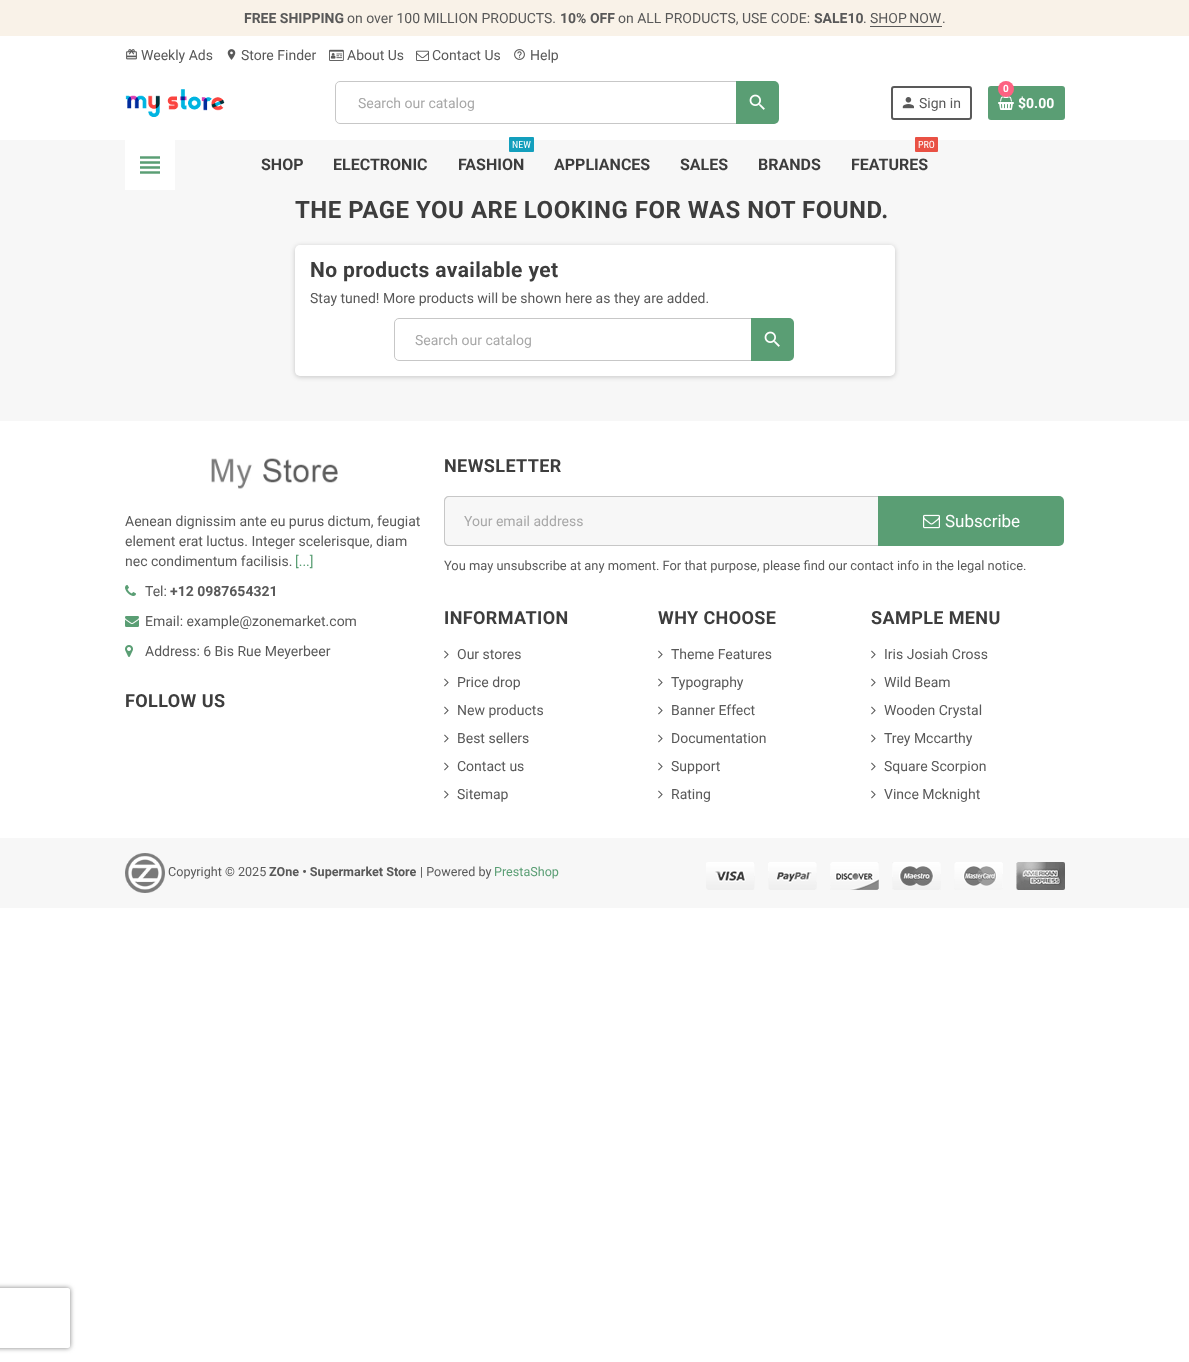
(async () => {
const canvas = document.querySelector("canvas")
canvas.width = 1189
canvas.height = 1362
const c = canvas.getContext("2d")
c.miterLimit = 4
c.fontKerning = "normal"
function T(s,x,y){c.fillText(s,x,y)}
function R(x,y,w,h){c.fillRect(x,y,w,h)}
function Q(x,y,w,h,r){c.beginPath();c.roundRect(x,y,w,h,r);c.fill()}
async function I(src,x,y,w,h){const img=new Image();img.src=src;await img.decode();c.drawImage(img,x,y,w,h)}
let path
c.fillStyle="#fff"
R(0,0,1189,1362)
c.fillStyle="#f9f2e8"
R(0,0,1189,36)
c.font="bold 14px Roboto"
c.fillStyle="#595959"
T("FREE SHIPPING",244,23)
c.font="14px Roboto"
T("on over 100 MILLION PRODUCTS.",347,23)
c.font="bold 14px Roboto"
T("10% OFF",560,23)
c.font="14px Roboto"
T("on ALL PRODUCTS, USE CODE:",618,23)
c.font="bold 14px Roboto"
T("SALE10",814,23)
c.font="14px Roboto"
T(".",863,23)
c.wordSpacing="-1px"
T("SHOP NOW",870,23)
R(870,26,72,1)
c.wordSpacing="0px"
T(".",942,23)
await I("1.png",126,49,11,11)
T("Weekly Ads",141,60)
await I("2.png",227,49,9,11)
T("Store Finder",241,60)
await I("3.png",329,49,15,12)
T("About Us",347,60)
await I("4.png",416,50,13,11)
T("Contact Us",432,60)
await I("5.png",514,49,11,11)
T("Help",530,60)
await I("6.png",125,89,100,28)
c.beginPath()
c.roundRect(335.5,81.5,442,42,4.5)
c.strokeStyle="#c7c7c7"
c.stroke()
c.fillStyle="#a8a8a8"
T("Search our catalog",358,108)
c.fillStyle="#5a9e74"
c.beginPath()
c.roundRect(736,81,43,43,[0,5,5,0])
c.fill()
await I("7.png",749,94,16,16)
c.beginPath()
c.roundRect(892,87,79,32,2)
c.strokeStyle="#595959"
c.lineWidth=2
c.stroke()
await I("8.png",902,97,12,12)
c.fillStyle="#595959"
T("Sign in",919,108)
c.fillStyle="#5a9e74"
Q(988,86,77,34,3)
await I("9.png",998,96,16,14)
c.fillStyle="#fd6282"
c.beginPath()
c.arc(1006,89,8,0,7)
c.fill()
c.font="bold 10px Roboto"
c.fillStyle="#fff"
T("0",1003,92)
c.font="bold 14px Roboto"
T("$0.00",1018,108)
c.fillStyle="#f7f7f7"
R(0,140,1189,281)
c.fillStyle="#fff"
R(125,140,50,50)
await I("10.png",140,156,20,18)
c.font="bold 16px 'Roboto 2'"
c.fillStyle="#3d3d3d"
T("SHOP",261,170)
T("ELECTRONIC",333,170)
c.fillStyle="#139fbd"
Q(509,137,25,15,1)
c.font="10px Roboto Condensed"
c.fillStyle="#fff"
T("NEW",512,148)
c.font="bold 16px 'Roboto 2'"
c.fillStyle="#3d3d3d"
T("FASHION",458,170)
T("APPLIANCES",554,170)
T("SALES",680,170)
T("BRANDS",758,170)
c.fillStyle="#e95144"
Q(915,137,23,15,1)
c.font="10px Roboto Condensed"
c.fillStyle="#fff"
T("PRO",918,148)
c.font="bold 16px 'Roboto 2'"
c.fillStyle="#3d3d3d"
T("FEATURES",851,170)
c.letterSpacing="0.5px"
c.font="bold 24px 'Roboto 2'"
T("THE PAGE YOU ARE LOOKING FOR WAS NOT FOUND.",295,218)
c.fillStyle="#00000033"
c.filter="blur(2.5px)"
c.beginPath()
c.roundRect(295,246,600,131,5)
c.fill()
c.filter="none"
c.fillStyle="#fff"
Q(295,245,600,131,5)
c.letterSpacing="0.4px"
c.font="bold 21px 'Roboto 2'"
c.fillStyle="#3d3d3d"
T("No products available yet",310,277)
c.letterSpacing="0px"
c.font="14px Roboto"
c.fillStyle="#595959"
T("Stay tuned! More products will be shown here as they are added.",310,303)
c.beginPath()
c.roundRect(394.5,318.5,398,42,4.5)
c.strokeStyle="#c7c7c7"
c.lineWidth=1
c.stroke()
c.fillStyle="#a8a8a8"
T("Search our catalog",415,345)
c.fillStyle="#5a9e74"
c.beginPath()
c.roundRect(751,318,43,43,[0,5,5,0])
c.fill()
await I("7.png",764,331,16,16)
await I("11.png",211,458,127,31)
c.fillStyle="#595959"
T("Aenean dignissim ante eu purus dictum, feugiat",125,526)
T("element erat luctus. Integer scelerisque, diam",125,546)
T("nec condimentum facilisis.",125,566)
c.fillStyle="#5a9e74"
T("[...]",295,566)
await I("12.png",125,585,11,11)
c.fillStyle="#595959"
T("Tel:",145,596)
c.font="bold 14px Roboto"
T("+12 0987654321",170,596)
await I("13.png",125,616,14,11)
c.font="14px Roboto"
T("Email: example@zonemarket.com",145,626)
await I("14.png",125,645,8,12)
T("Address: 6 Bis Rue Meyerbeer",145,656)
c.letterSpacing="0.4px"
c.font="bold 18px 'Roboto 2'"
c.fillStyle="#3d3d3d"
T("FOLLOW US",125,707)
T("NEWSLETTER",444,472)
c.fillStyle="#f7f7f7"
c.beginPath()
c.roundRect(445,497,433,48,[4,0,0,4])
c.fill()
c.fillStyle="#c7c7c7"
path = new Path2D("M449 496h429v50h-429c-3 0-5-2-5-5v-40c0-3 2-5 5-5zm0 1h429v48h-429c-2 0-4-2-4-4v-40c0-2 2-4 4-4z")
c.fill(path,"evenodd")
c.letterSpacing="0px"
c.font="14px Roboto"
c.fillStyle="#a8a8a8"
T("Your email address",464,526)
c.fillStyle="#5a9e74"
c.beginPath()
c.roundRect(878,496,186,50,[0,5,5,0])
c.fill()
await I("15.png",923,514,17,15)
c.font="17px Roboto"
c.fillStyle="#fff"
T("Subscribe",945,527)
c.font="12.9px Roboto"
c.fillStyle="#595959"
T("You may unsubscribe at any moment. For that purpose, please find our contact info in the legal notice.",444,570)
c.letterSpacing="0.4px"
c.font="bold 18px 'Roboto 2'"
c.fillStyle="#3d3d3d"
T("INFORMATION",444,624)
await I("16.png",444,650,5,9)
c.letterSpacing="0px"
c.font="14px Roboto"
c.fillStyle="#595959"
T("Our stores",457,659)
await I("16.png",444,678,5,9)
T("Price drop",457,687)
await I("16.png",444,706,5,9)
T("New products",457,715)
await I("16.png",444,734,5,9)
T("Best sellers",457,743)
await I("16.png",444,762,5,9)
T("Contact us",457,771)
await I("16.png",444,790,5,9)
T("Sitemap",457,799)
c.letterSpacing="0.4px"
c.font="bold 18px 'Roboto 2'"
c.fillStyle="#3d3d3d"
T("WHY CHOOSE",658,624)
await I("16.png",658,650,5,9)
c.letterSpacing="0px"
c.font="14px Roboto"
c.fillStyle="#595959"
T("Theme Features",671,659)
await I("16.png",658,678,5,9)
T("Typography",671,687)
await I("16.png",658,706,5,9)
T("Banner Effect",671,715)
await I("16.png",658,734,5,9)
T("Documentation",671,743)
await I("16.png",658,762,5,9)
T("Support",671,771)
await I("16.png",658,790,5,9)
T("Rating",671,799)
c.letterSpacing="0.4px"
c.font="bold 18px 'Roboto 2'"
c.fillStyle="#3d3d3d"
T("SAMPLE MENU",871,624)
await I("16.png",871,650,5,9)
c.letterSpacing="0px"
c.font="14px Roboto"
c.fillStyle="#595959"
T("Iris Josiah Cross",884,659)
await I("16.png",871,678,5,9)
T("Wild Beam",884,687)
await I("16.png",871,706,5,9)
T("Wooden Crystal",884,715)
await I("16.png",871,734,5,9)
T("Trey Mccarthy",884,743)
await I("16.png",871,762,5,9)
T("Square Scorpion",884,771)
await I("16.png",871,790,5,9)
T("Vince Mcknight",884,799)
c.fillStyle="#f7f7f7"
R(0,838,1189,70)
await I("17.png",125,853,40,40)
c.font="12.6px Roboto"
c.fillStyle="#595959"
T("Copyright © 2025",168,876)
c.font="bold 12.6px Roboto"
T("ZOne • Supermarket Store",269,876)
c.font="12.6px Roboto"
T("| Powered by",420,876)
c.fillStyle="#5a9e74"
T("PrestaShop",494,876)
await I("18.png",706,862,359,28)
c.save()
path = new Path2D("M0 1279h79v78h-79zm-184 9h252c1 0 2 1 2 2v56c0 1-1 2-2 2h-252c-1 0-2-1-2-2v-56c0-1 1-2 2-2z")
c.clip(path,"evenodd")
c.fillStyle="#808080"
c.filter="blur(2.5px)"
c.beginPath()
c.roundRect(-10,1288,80,60,2)
c.fill()
c.filter="none"
c.restore()
})()
